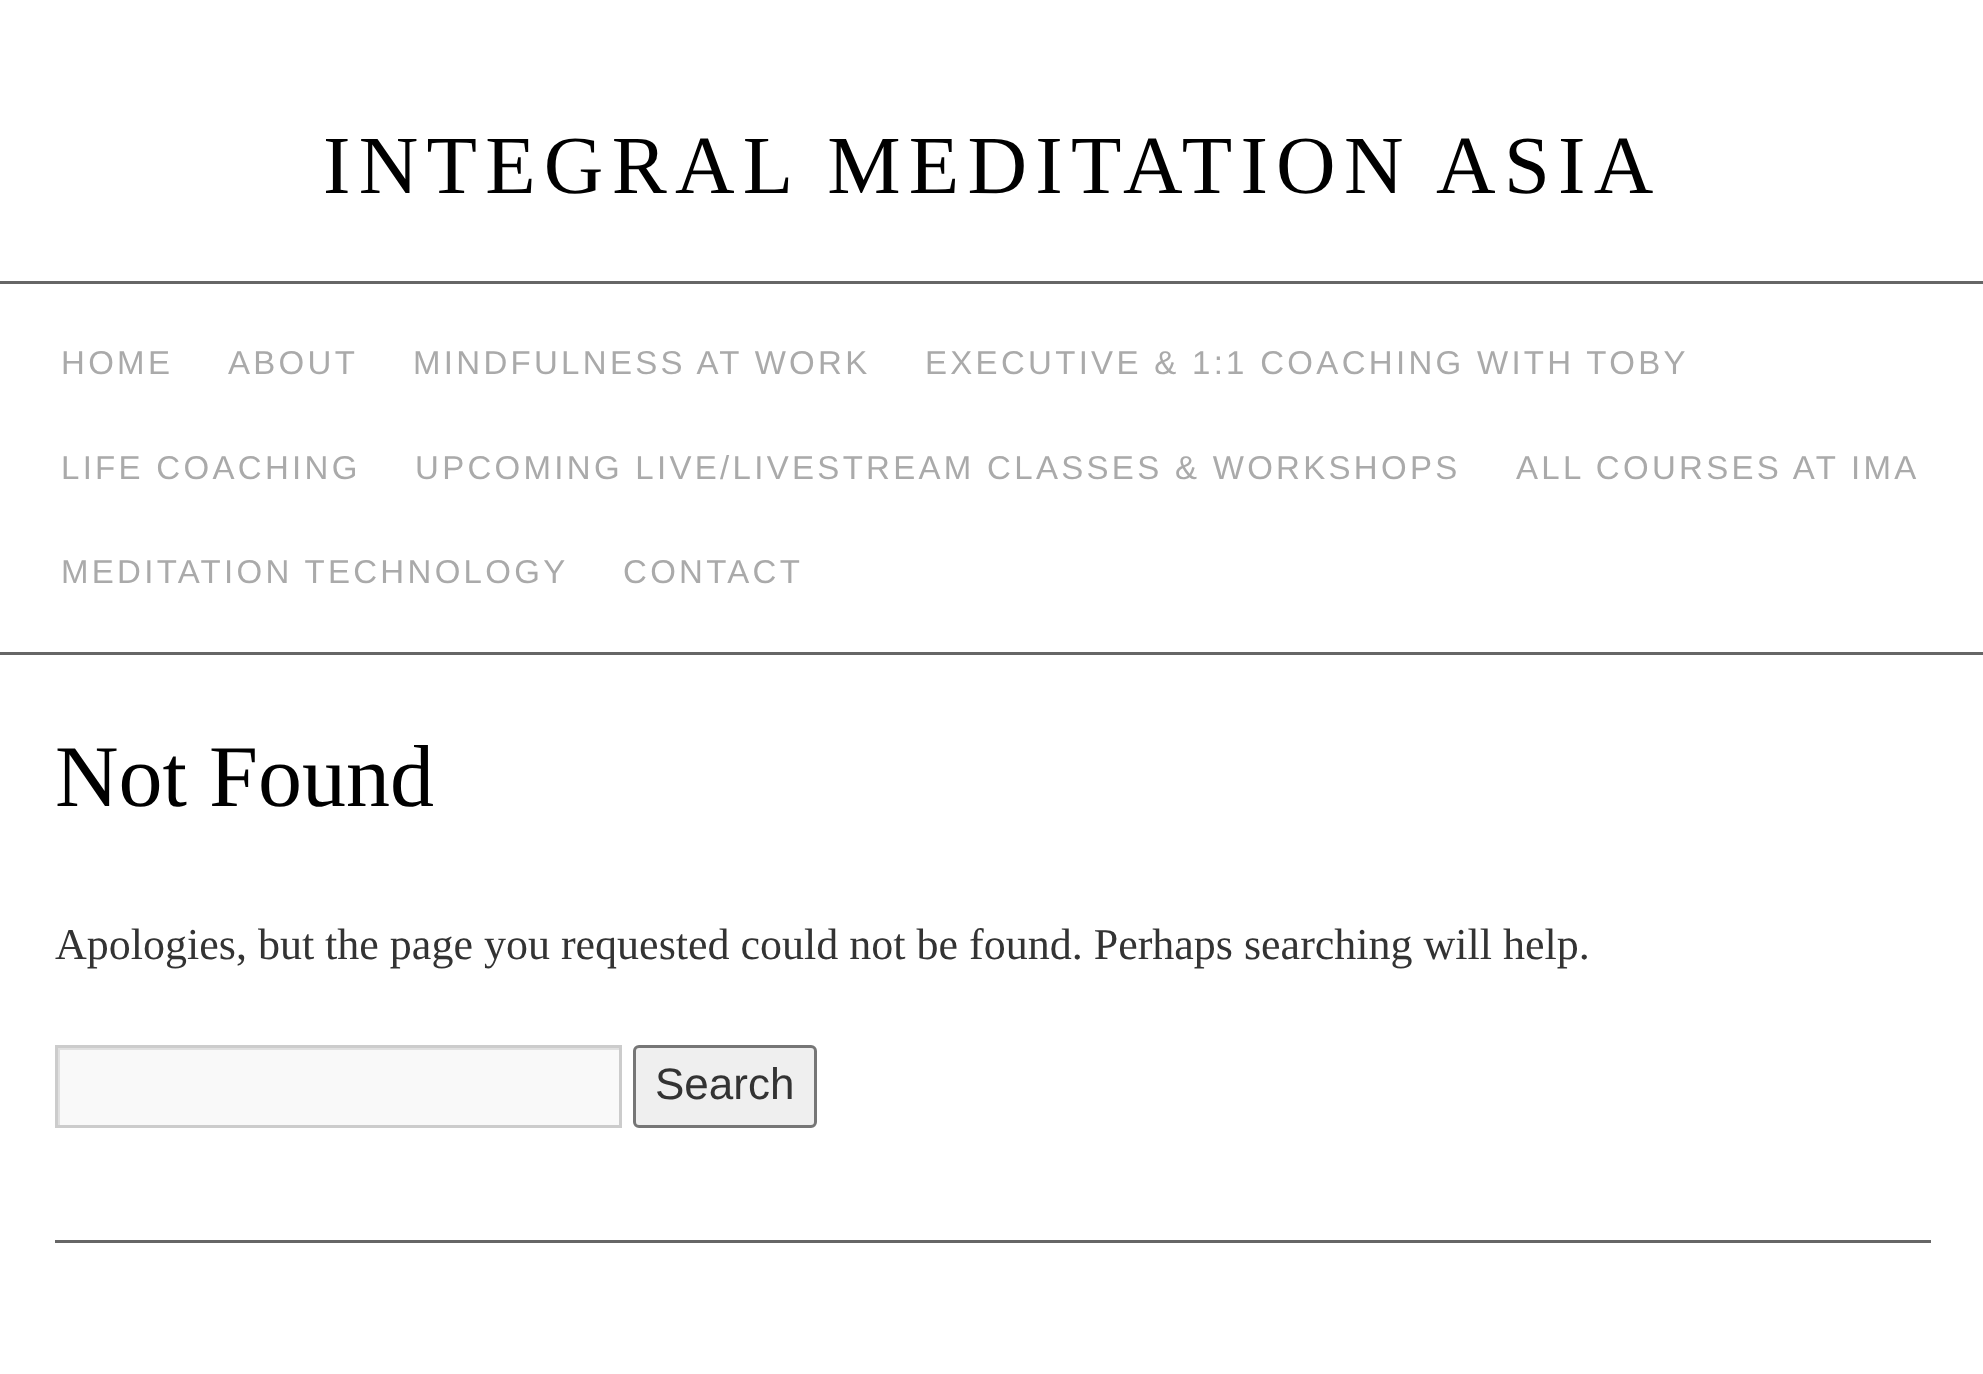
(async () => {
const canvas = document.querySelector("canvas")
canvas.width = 1983
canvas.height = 1374
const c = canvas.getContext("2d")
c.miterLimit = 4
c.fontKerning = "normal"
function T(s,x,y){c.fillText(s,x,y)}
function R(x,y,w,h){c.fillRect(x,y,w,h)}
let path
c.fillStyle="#fff"
R(0,0,1983,1374)
c.letterSpacing="8.25px"
c.font="82.5px Liberation Serif"
c.fillStyle="#000"
T("INTEGRAL MEDITATION ASIA",323,193)
c.fillStyle="#666"
R(0,281,1983,3)
R(0,652,1983,3)
c.letterSpacing="3.3px"
c.font="33px Liberation Sans"
c.fillStyle="#aaa"
T("HOME",61,374)
T("ABOUT",228,374)
T("MINDFULNESS AT WORK",413,374)
T("EXECUTIVE & 1:1 COACHING WITH TOBY",925,374)
T("LIFE COACHING",61,479)
T("UPCOMING LIVE/LIVESTREAM CLASSES & WORKSHOPS",415,479)
T("ALL COURSES AT IMA",1516,479)
T("MEDITATION TECHNOLOGY",61,583)
T("CONTACT",623,583)
c.letterSpacing="0px"
c.font="88px Liberation Serif"
c.fillStyle="#000"
T("Not Found",55,806)
c.font="44px Liberation Serif"
c.fillStyle="#333"
T("Apologies, but the page you requested could not be found. Perhaps searching will help.",55,959)
c.fillStyle="#f9f9f9"
R(60,1050,559,75)
c.save()
c.beginPath()
c.rect(58,1048,561,77)
c.clip()
c.fillStyle="#e0e0e0"
path = new Path2D("M-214 776h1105v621h-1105zm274 274h562v78h-562z")
c.fill(path,"evenodd")
c.restore()
c.strokeStyle="#ccc"
c.lineWidth=3
c.strokeRect(56.5,1046.5,564,80)
c.fillStyle="#efefef"
c.beginPath()
c.roundRect(634.5,1046.5,181,80,4.5)
c.fill()
c.strokeStyle="#767676"
c.stroke()
c.font="44px Liberation Sans"
c.fillStyle="#333"
T("Search",655,1099)
c.fillStyle="#666"
R(55,1240,1876,3)
})()
